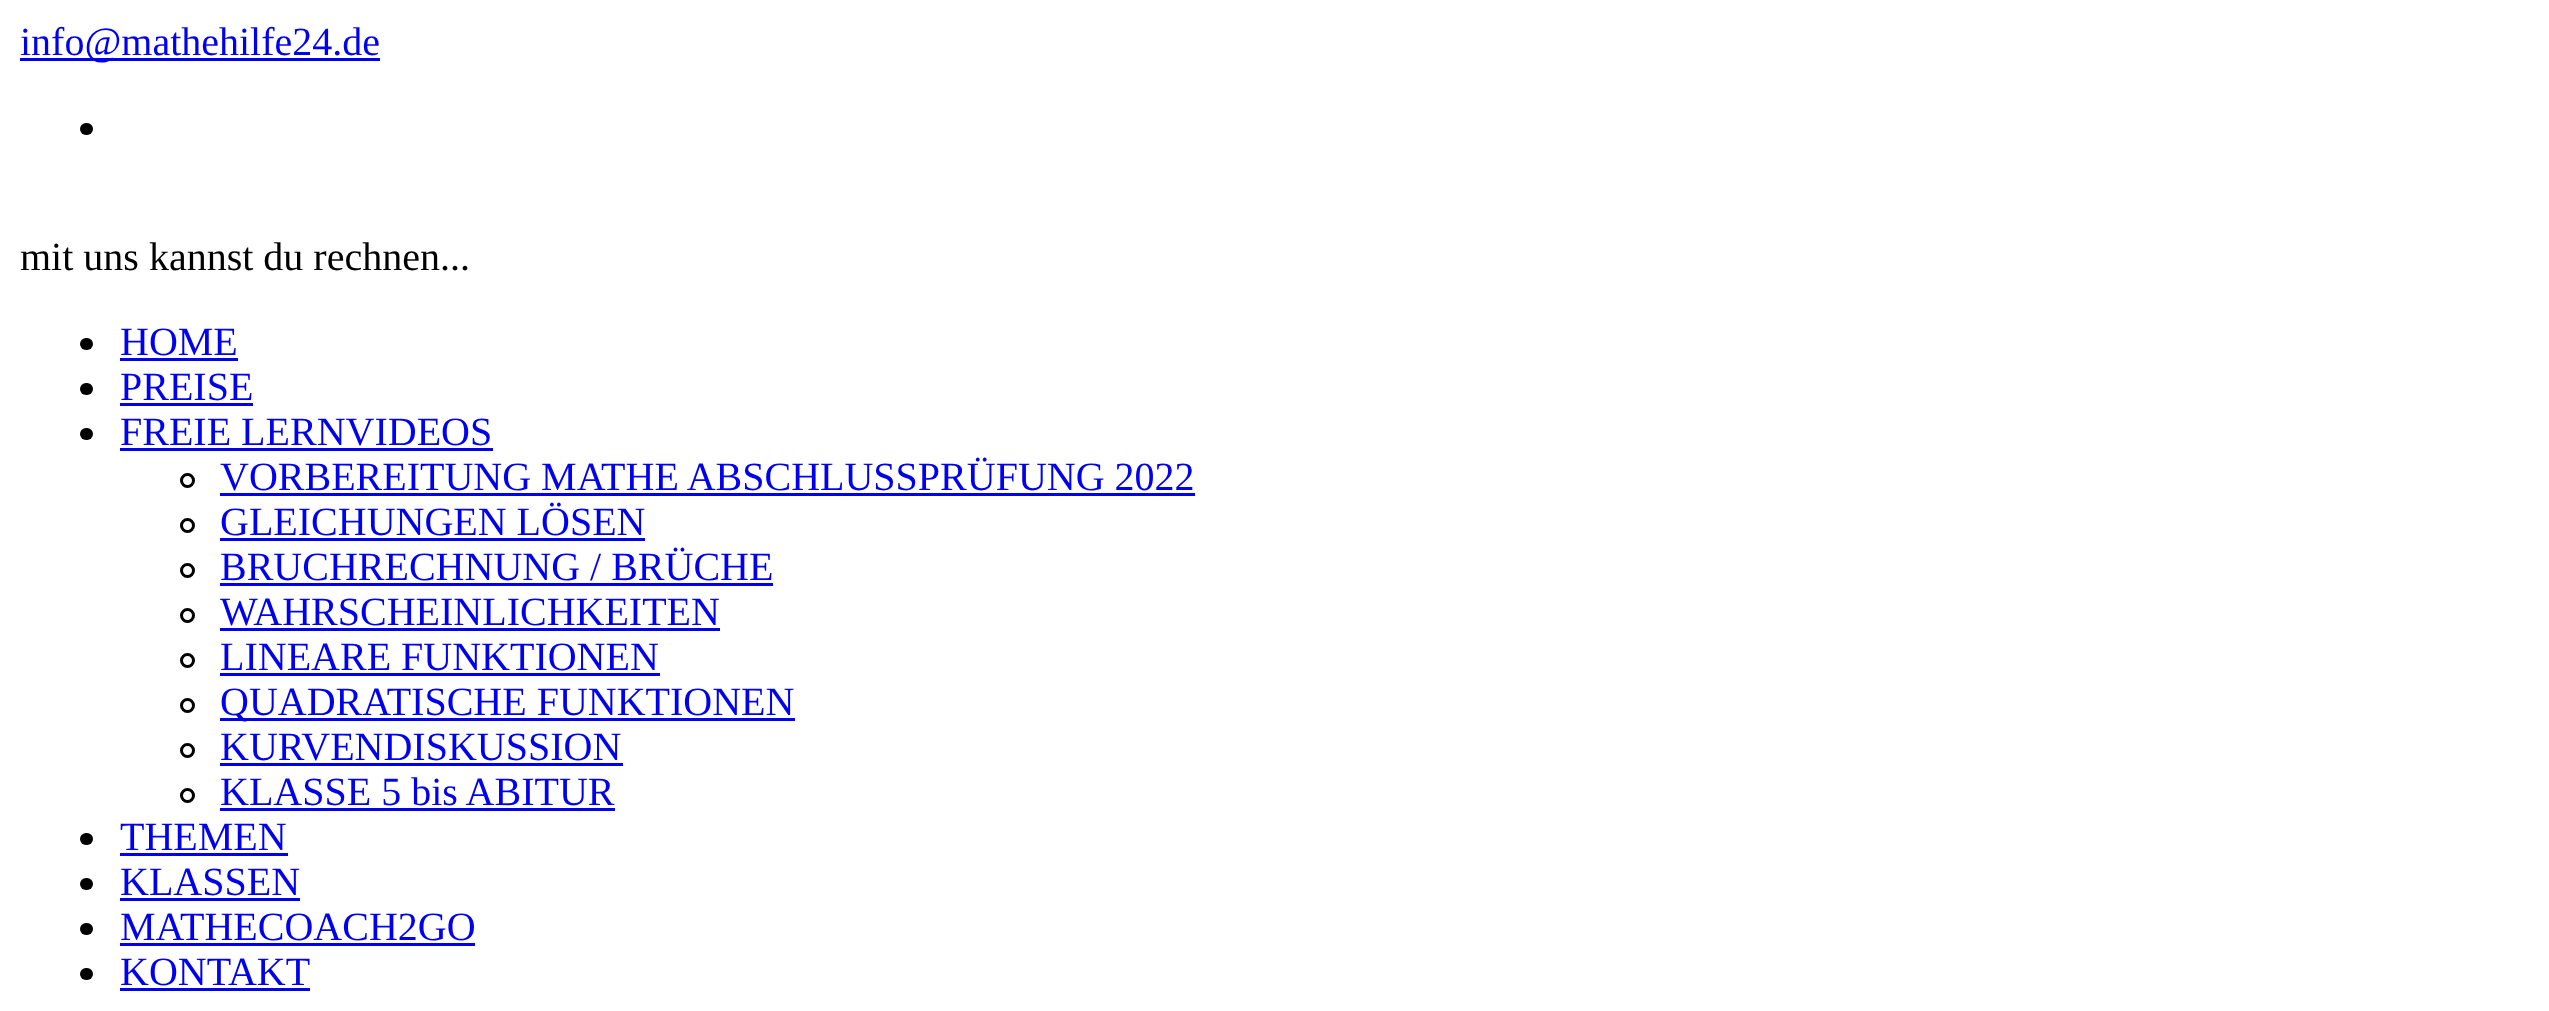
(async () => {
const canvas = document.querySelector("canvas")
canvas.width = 2549
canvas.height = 1011
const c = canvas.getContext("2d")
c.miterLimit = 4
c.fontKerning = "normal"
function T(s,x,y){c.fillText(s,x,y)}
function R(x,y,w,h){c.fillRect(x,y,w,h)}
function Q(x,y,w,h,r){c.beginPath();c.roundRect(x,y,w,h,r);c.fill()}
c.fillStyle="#fff"
R(0,0,2549,1011)
c.fillStyle="#00e"
R(20,58,360,3)
c.font="40px Liberation Serif"
T("info@mathehilfe24.de",20,55)
c.fillStyle="#000"
Q(80,123,13,12,6)
T("mit uns kannst du rechnen...",20,270)
Q(80,338,13,12,6)
c.fillStyle="#00e"
T("HOME",120,355)
R(120,358,118,3)
c.fillStyle="#000"
Q(80,383,13,12,6)
c.fillStyle="#00e"
T("PREISE",120,400)
R(120,403,133,3)
c.fillStyle="#000"
Q(80,428,13,12,6)
c.fillStyle="#00e"
T("FREIE LERNVIDEOS",120,445)
R(120,448,373,3)
c.beginPath()
c.arc(187.5,480.5,6,0,7)
c.strokeStyle="#000"
c.lineWidth=3
c.stroke()
T("VORBEREITUNG MATHE ABSCHLUSSPRÜFUNG 2022",220,490)
R(220,493,975,3)
c.beginPath()
c.arc(187.5,525.5,6,0,7)
c.stroke()
T("GLEICHUNGEN LÖSEN",220,535)
R(220,538,425,3)
c.beginPath()
c.arc(187.5,570.5,6,0,7)
c.stroke()
T("BRUCHRECHNUNG / BRÜCHE",220,580)
R(220,583,553,3)
c.beginPath()
c.arc(187.5,615.5,6,0,7)
c.stroke()
T("WAHRSCHEINLICHKEITEN",220,625)
R(220,628,500,3)
c.beginPath()
c.arc(187.5,660.5,6,0,7)
c.stroke()
T("LINEARE FUNKTIONEN",220,670)
R(220,673,440,3)
c.beginPath()
c.arc(187.5,705.5,6,0,7)
c.stroke()
R(220,718,575,3)
T("QUADRATISCHE FUNKTIONEN",220,715)
c.beginPath()
c.arc(187.5,750.5,6,0,7)
c.stroke()
T("KURVENDISKUSSION",220,760)
R(220,763,403,3)
c.beginPath()
c.arc(187.5,795.5,6,0,7)
c.stroke()
T("KLASSE 5 bis ABITUR",220,805)
R(220,808,395,3)
c.fillStyle="#000"
Q(80,833,13,12,6)
c.fillStyle="#00e"
T("THEMEN",120,850)
R(120,853,168,3)
c.fillStyle="#000"
Q(80,878,13,12,6)
c.fillStyle="#00e"
T("KLASSEN",120,895)
R(120,898,180,3)
c.fillStyle="#000"
Q(80,923,13,12,6)
c.fillStyle="#00e"
T("MATHECOACH2GO",120,940)
R(120,943,355,3)
c.fillStyle="#000"
Q(80,968,13,12,6)
c.fillStyle="#00e"
T("KONTAKT",120,985)
R(120,988,190,3)
})()
